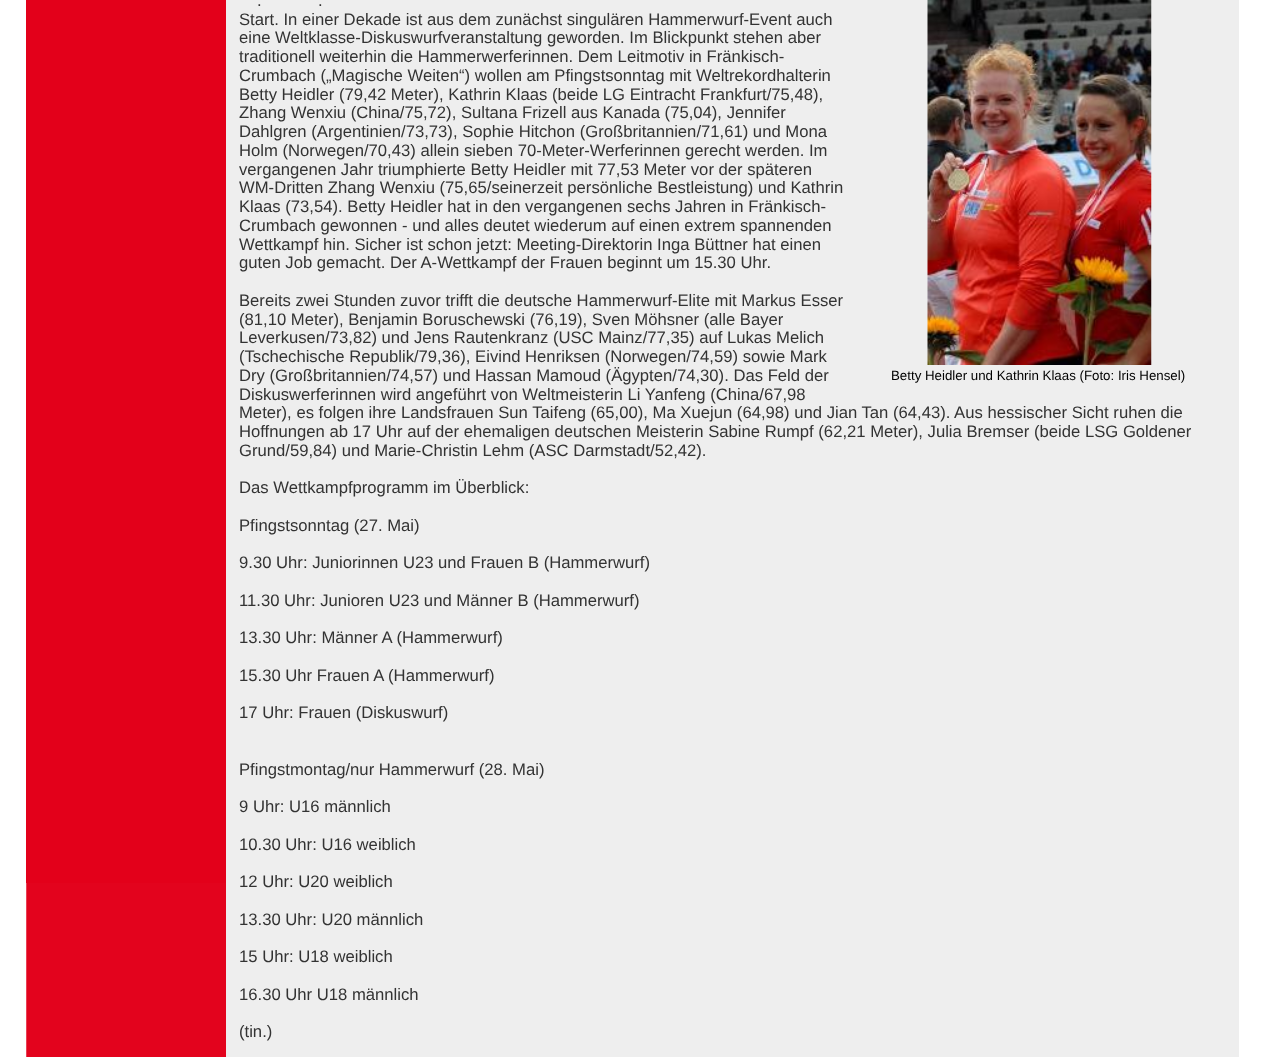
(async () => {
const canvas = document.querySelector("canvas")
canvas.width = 1265
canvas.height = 1057
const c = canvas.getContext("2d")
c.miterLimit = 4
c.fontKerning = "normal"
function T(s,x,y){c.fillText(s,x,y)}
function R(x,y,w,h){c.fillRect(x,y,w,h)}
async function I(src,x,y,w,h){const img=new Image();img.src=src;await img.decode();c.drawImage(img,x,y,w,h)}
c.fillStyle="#fff"
R(0,0,1265,1057)
await I("1.png",26,883,200,174)
c.fillStyle="#e3001a"
R(26,0,200,883)
c.fillStyle="#eee"
R(226,0,1013,1057)
c.font="16.67px Liberation Sans"
c.fillStyle="#333"
T(".",257,6)
T(".",318,6)
T("Start. In einer Dekade ist aus dem zunächst singulären Hammerwurf-Event auch",239,25)
T("eine Weltklasse-Diskuswurfveranstaltung geworden. Im Blickpunkt stehen aber",239,43)
T("traditionell weiterhin die Hammerwerferinnen. Dem Leitmotiv in Fränkisch-",239,62)
T("Crumbach („Magische Weiten“) wollen am Pfingstsonntag mit Weltrekordhalterin",239,81)
T("Betty Heidler (79,42 Meter), Kathrin Klaas (beide LG Eintracht Frankfurt/75,48),",239,100)
T("Zhang Wenxiu (China/75,72), Sultana Frizell aus Kanada (75,04), Jennifer",239,118)
T("Dahlgren (Argentinien/73,73), Sophie Hitchon (Großbritannien/71,61) und Mona",239,137)
T("Holm (Norwegen/70,43) allein sieben 70-Meter-Werferinnen gerecht werden. Im",239,156)
T("vergangenen Jahr triumphierte Betty Heidler mit 77,53 Meter vor der späteren",239,175)
T("WM-Dritten Zhang Wenxiu (75,65/seinerzeit persönliche Bestleistung) und Kathrin",239,193)
T("Klaas (73,54). Betty Heidler hat in den vergangenen sechs Jahren in Fränkisch-",239,212)
T("Crumbach gewonnen - und alles deutet wiederum auf einen extrem spannenden",239,231)
T("Wettkampf hin. Sicher ist schon jetzt: Meeting-Direktorin Inga Büttner hat einen",239,250)
T("guten Job gemacht. Der A-Wettkampf der Frauen beginnt um 15.30 Uhr.",239,268)
T("Bereits zwei Stunden zuvor trifft die deutsche Hammerwurf-Elite mit Markus Esser",239,306)
T("(81,10 Meter), Benjamin Boruschewski (76,19), Sven Möhsner (alle Bayer",239,325)
T("Leverkusen/73,82) und Jens Rautenkranz (USC Mainz/77,35) auf Lukas Melich",239,343)
T("(Tschechische Republik/79,36), Eivind Henriksen (Norwegen/74,59) sowie Mark",239,362)
T("Dry (Großbritannien/74,57) und Hassan Mamoud (Ägypten/74,30). Das Feld der",239,381)
T("Diskuswerferinnen wird angeführt von Weltmeisterin Li Yanfeng (China/67,98",239,400)
T("Meter), es folgen ihre Landsfrauen Sun Taifeng (65,00), Ma Xuejun (64,98) und Jian Tan (64,43). Aus hessischer Sicht ruhen die",239,418)
T("Hoffnungen ab 17 Uhr auf der ehemaligen deutschen Meisterin Sabine Rumpf (62,21 Meter), Julia Bremser (beide LSG Goldener",239,437)
T("Grund/59,84) und Marie-Christin Lehm (ASC Darmstadt/52,42).",239,456)
T("Das Wettkampfprogramm im Überblick:",239,493)
T("Pfingstsonntag (27. Mai)",239,531)
T("9.30 Uhr: Juniorinnen U23 und Frauen B (Hammerwurf)",239,568)
T("11.30 Uhr: Junioren U23 und Männer B (Hammerwurf)",239,606)
T("13.30 Uhr: Männer A (Hammerwurf)",239,643)
T("15.30 Uhr Frauen A (Hammerwurf)",239,681)
T("17 Uhr: Frauen (Diskuswurf)",239,718)
T("Pfingstmontag/nur Hammerwurf (28. Mai)",239,775)
T("9 Uhr: U16 männlich",239,812)
T("10.30 Uhr: U16 weiblich",239,850)
T("12 Uhr: U20 weiblich",239,887)
T("13.30 Uhr: U20 männlich",239,925)
T("15 Uhr: U18 weiblich",239,962)
T("16.30 Uhr U18 männlich",239,1000)
T("(tin.)",239,1037)
await I("2.png",927,0,225,365)
c.font="13.3px Liberation Sans"
c.fillStyle="#000"
T("Betty Heidler und Kathrin Klaas (Foto: Iris Hensel)",891,380)
})()
